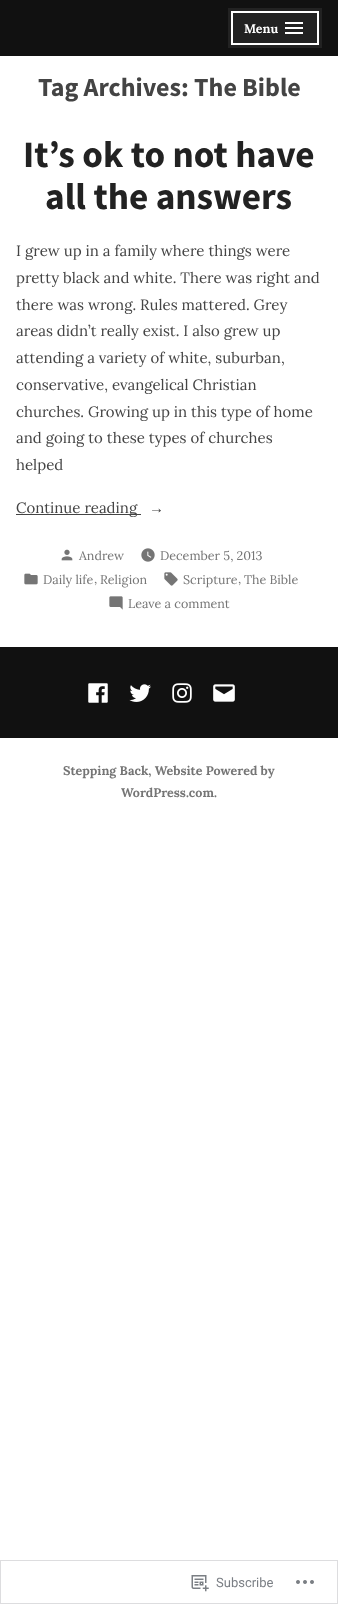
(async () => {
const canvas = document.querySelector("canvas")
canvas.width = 338
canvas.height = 1604
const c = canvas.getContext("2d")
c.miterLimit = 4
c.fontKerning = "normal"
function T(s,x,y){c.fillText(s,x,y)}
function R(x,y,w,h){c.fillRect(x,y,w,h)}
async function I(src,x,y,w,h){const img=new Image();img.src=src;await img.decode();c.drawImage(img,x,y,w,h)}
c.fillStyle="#fff"
R(0,0,338,1604)
c.fillStyle="#111"
R(0,0,338,56)
c.fillStyle="#222"
R(228,8,94,40)
await I("1.png",285,22,18,12)
c.strokeStyle="#fff"
c.lineWidth=2
c.strokeRect(232,12,86,32)
c.font="bold 12.5px Lora"
c.fillStyle="#fff"
T("Menu",244,33)
c.font="bold 26px Source Sans Pro"
c.fillStyle="#444"
T("Tag Archives: The Bible",38,96)
c.font="bold 37.25px Source Sans Pro"
c.fillStyle="#222"
T("It’s ok to not have",23,167)
T("all the answers",45,209)
c.font="15px Lora"
c.fillStyle="#444"
T("I grew up in a family where things were",16,256)
T("pretty black and white. There was right and",16,283)
T("there was wrong. Rules mattered. Grey",16,310)
T("areas didn’t really exist. I also grew up",16,336)
T("attending a variety of white, suburban,",16,363)
T("conservative, evangelical Christian",16,390)
T("churches. Growing up in this type of home",16,417)
T("and going to these types of churches",16,443)
T("helped",16,470)
R(16,514,125,1)
T("Continue reading",16,513)
c.font="15px Liberation Serif"
T("→",149,513)
await I("2.png",61,549,12,12)
c.font="12.5px Lora"
c.fillStyle="#757575"
T("Andrew",79,560)
await I("3.png",141,548,14,14)
T("December 5, 2013",160,560)
await I("4.png",24,573,14,12)
T("Daily life",43,584)
T(",",94,583)
T("Religion",100,584)
await I("5.png",164,572,14,14)
T("Scripture",183,584)
T(",",238,583)
T("The Bible",244,584)
await I("6.png",109,596,14,14)
T("Leave a comment",128,608)
c.fillStyle="#111"
R(0,647,338,91)
await I("7.png",88,683,20,20)
await I("8.png",129,684,22,18)
await I("9.png",172,683,20,20)
await I("10.png",213,684,22,18)
c.font="bold 12.5px Lora"
c.fillStyle="#757575"
T("Stepping Back, Website Powered by",63,775)
T("WordPress.com.",121,797)
c.strokeStyle="#dddddf"
c.lineWidth=1
c.strokeRect(.5,1560.5,337,43)
await I("11.png",191,1575,18,17)
c.font="13px Roboto"
c.fillStyle="#7b7f85"
T("Subscribe",216,1587)
await I("12.png",296,1580,18,4)
})()
